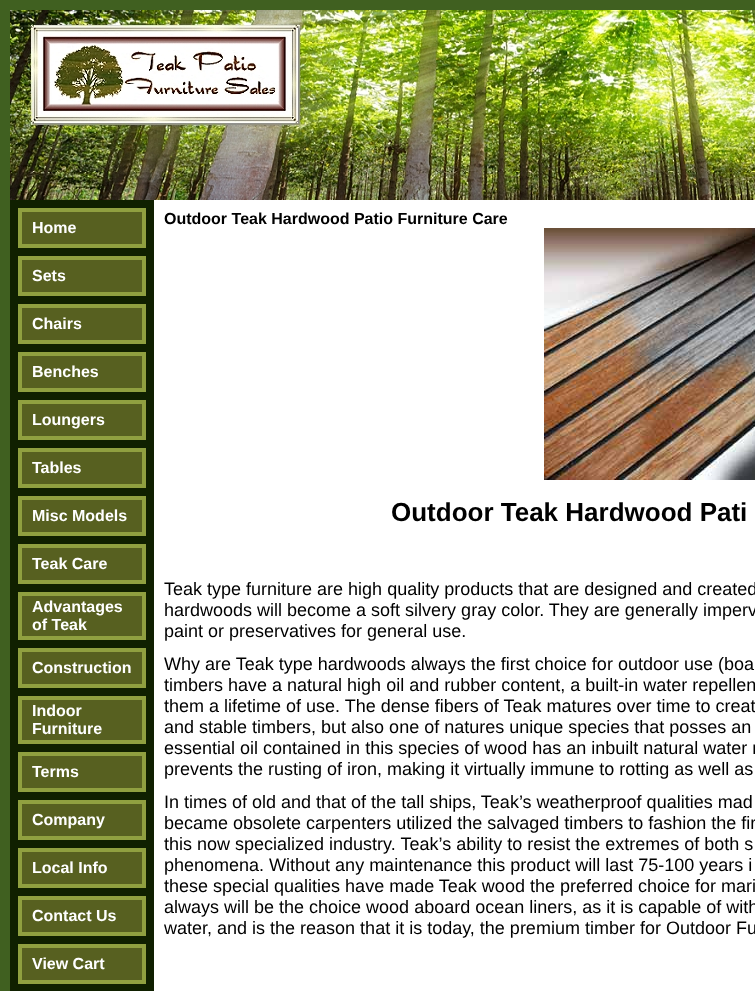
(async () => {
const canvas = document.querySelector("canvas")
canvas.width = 755
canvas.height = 991
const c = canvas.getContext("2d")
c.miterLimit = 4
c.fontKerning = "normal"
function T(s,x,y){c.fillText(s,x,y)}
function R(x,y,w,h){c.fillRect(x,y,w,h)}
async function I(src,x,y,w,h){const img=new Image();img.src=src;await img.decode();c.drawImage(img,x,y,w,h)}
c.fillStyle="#406020"
R(0,0,755,991)
await I("1.png",10,10,745,190)
c.fillStyle="#102000"
R(10,200,144,791)
c.fillStyle="#90a040"
R(18,208,128,40)
c.fillStyle="#576020"
R(22,212,120,32)
c.font="bold 16px Liberation Sans"
c.fillStyle="#fff"
T("Home",32,233)
c.fillStyle="#90a040"
R(18,256,128,40)
c.fillStyle="#576020"
R(22,260,120,32)
c.fillStyle="#fff"
T("Sets",32,281)
c.fillStyle="#90a040"
R(18,304,128,40)
c.fillStyle="#576020"
R(22,308,120,32)
c.fillStyle="#fff"
T("Chairs",32,329)
c.fillStyle="#90a040"
R(18,352,128,40)
c.fillStyle="#576020"
R(22,356,120,32)
c.fillStyle="#fff"
T("Benches",32,377)
c.fillStyle="#90a040"
R(18,400,128,40)
c.fillStyle="#576020"
R(22,404,120,32)
c.fillStyle="#fff"
T("Loungers",32,425)
c.fillStyle="#90a040"
R(18,448,128,40)
c.fillStyle="#576020"
R(22,452,120,32)
c.fillStyle="#fff"
T("Tables",32,473)
c.fillStyle="#90a040"
R(18,496,128,40)
c.fillStyle="#576020"
R(22,500,120,32)
c.fillStyle="#fff"
T("Misc Models",32,521)
c.fillStyle="#90a040"
R(18,544,128,40)
c.fillStyle="#576020"
R(22,548,120,32)
c.fillStyle="#fff"
T("Teak Care",32,569)
c.fillStyle="#90a040"
R(18,592,128,48)
c.fillStyle="#576020"
R(22,596,120,40)
c.fillStyle="#fff"
T("Advantages",32,612)
T("of Teak",32,630)
c.fillStyle="#90a040"
R(18,648,128,40)
c.fillStyle="#576020"
R(22,652,120,32)
c.fillStyle="#fff"
T("Construction",32,673)
c.fillStyle="#90a040"
R(18,696,128,48)
c.fillStyle="#576020"
R(22,700,120,40)
c.fillStyle="#fff"
T("Indoor",32,716)
T("Furniture",32,734)
c.fillStyle="#90a040"
R(18,752,128,40)
c.fillStyle="#576020"
R(22,756,120,32)
c.fillStyle="#fff"
T("Terms",32,777)
c.fillStyle="#90a040"
R(18,800,128,40)
c.fillStyle="#576020"
R(22,804,120,32)
c.fillStyle="#fff"
T("Company",32,825)
c.fillStyle="#90a040"
R(18,848,128,40)
c.fillStyle="#576020"
R(22,852,120,32)
c.fillStyle="#fff"
T("Local Info",32,873)
c.fillStyle="#90a040"
R(18,896,128,40)
c.fillStyle="#576020"
R(22,900,120,32)
c.fillStyle="#fff"
T("Contact Us",32,921)
c.fillStyle="#90a040"
R(18,944,128,40)
c.fillStyle="#576020"
R(22,948,120,32)
c.fillStyle="#fff"
T("View Cart",32,969)
R(154,200,601,791)
c.fillStyle="#000"
T("Outdoor Teak Hardwood Patio Furniture Care",164,224)
await I("2.png",544,228,211,252)
c.font="bold 26px Liberation Sans"
T("Outdoor Teak Hardwood Pati",391,521)
c.font="18px Liberation Sans"
T("Teak type furniture are high quality products that are designed and created",164,595)
T("hardwoods will become a soft silvery gray color. They are generally imperv",164,616)
T("paint or preservatives for general use.",164,637)
T("Why are Teak type hardwoods always the first choice for outdoor use (boa",164,670)
T("timbers have a natural high oil and rubber content, a built-in water repellen",164,691)
T("them a lifetime of use. The dense fibers of Teak matures over time to creat",164,712)
T("and stable timbers, but also one of natures unique species that posses an",164,733)
T("essential oil contained in this species of wood has an inbuilt natural water r",164,754)
T("prevents the rusting of iron, making it virtually immune to rotting as well as",164,775)
T("In times of old and that of the tall ships, Teak’s weatherproof qualities mad",164,808)
T("became obsolete carpenters utilized the salvaged timbers to fashion the fir",164,829)
T("this now specialized industry. Teak’s ability to resist the extremes of both s",164,850)
T("phenomena. Without any maintenance this product will last 75-100 years i",164,871)
T("these special qualities have made Teak wood the preferred choice for mari",164,892)
T("always will be the choice wood aboard ocean liners, as it is capable of with",164,913)
T("water, and is the reason that it is today, the premium timber for Outdoor Fu",164,934)
})()
